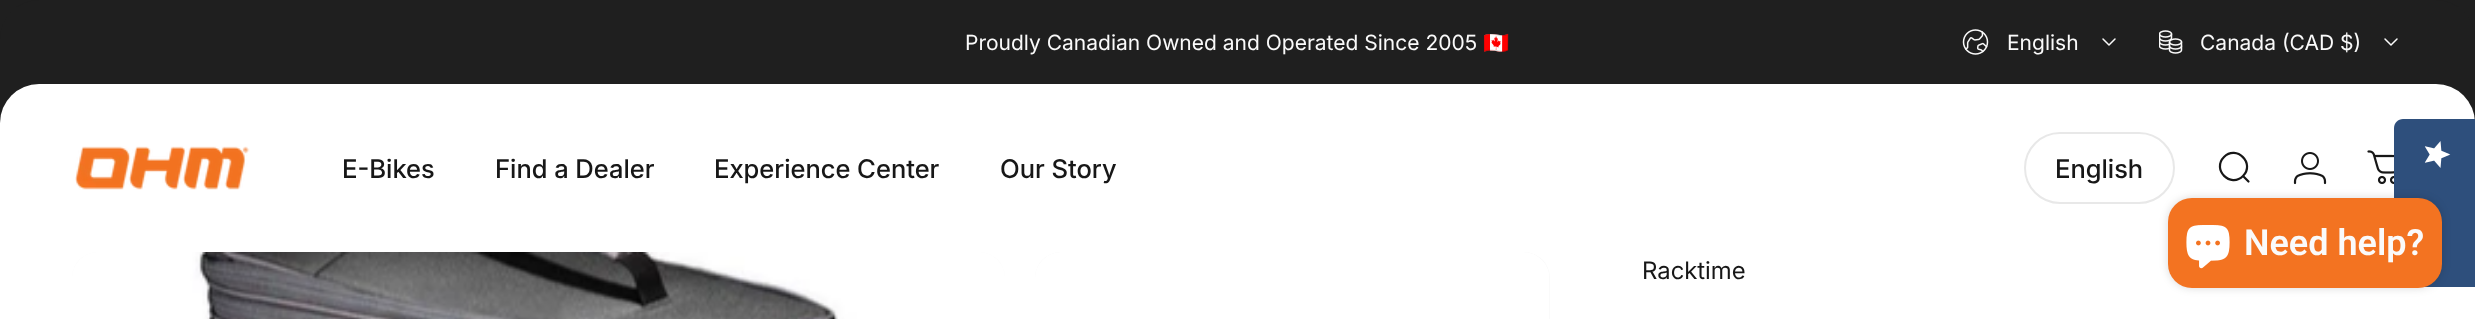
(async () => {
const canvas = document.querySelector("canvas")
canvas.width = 2475
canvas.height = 319
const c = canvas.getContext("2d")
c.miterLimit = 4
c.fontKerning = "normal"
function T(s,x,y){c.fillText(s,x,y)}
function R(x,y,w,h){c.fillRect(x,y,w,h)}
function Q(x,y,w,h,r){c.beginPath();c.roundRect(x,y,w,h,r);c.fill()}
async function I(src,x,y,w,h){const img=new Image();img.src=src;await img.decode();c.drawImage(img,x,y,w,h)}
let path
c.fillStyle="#fff"
R(0,0,2475,319)
c.fillStyle="#1f1f1f"
R(0,0,2475,39)
c.beginPath()
c.roundRect(0,0,2475,123,[39,39,0,0])
c.fill()
c.font="21px Inter"
c.fillStyle="#fafafa"
T("Proudly Canadian Owned and Operated Since 2005",965,50)
c.font="21px Noto Color Emoji"
T("🇨🇦",1483,50)
await I("1.png",1962,29,27,26)
c.font="21px Inter"
T("English",2007,50)
path = new Path2D("M2103 39l6 6l6-6")
c.strokeStyle="#fafafa"
c.lineWidth=1.5
c.lineCap="round"
c.lineJoin="round"
c.stroke(path)
await I("2.png",2159,30,24,24)
T("Canada (CAD $)",2200,50)
path = new Path2D("M2385 39l6 6l6-6")
c.stroke(path)
c.fillStyle="#fff"
c.beginPath()
c.roundRect(0,84,2475,168,[39,39,0,0])
c.fill()
await I("3.png",75,146,175,44)
c.font="500 25.75px Inter"
c.fillStyle="#171717"
T("E-Bikes",342,178)
T("Find a Dealer",495,178)
T("Experience Center",714,178)
T("Our Story",1000,178)
c.beginPath()
c.roundRect(2025,133,149,70,35)
c.strokeStyle="#e8e8e8"
c.lineWidth=2
c.lineJoin="miter"
c.stroke()
T("English",2055,178)
path = new Path2D("M2248.5 181.5l-5.5-5.5m0 0c12.5-12.5-6.5-31.5-19-19c-12.5 12.5 6.5 31.5 19 19z")
c.strokeStyle="#171717"
c.lineWidth=2.2
c.stroke(path)
await I("4.png",2293,152,34,33)
await I("5.png",2367,150,27,35)
c.fillStyle="#2e4f7c"
path = new Path2D("M2475 119v168h-72c-5 0-9-4-9-9v-150c0-5 4-9 9-9z")
c.fill(path)
await I("6.png",2424,141,27,27)
c.fillStyle="#00000026"
c.filter="blur(4px)"
c.beginPath()
c.roundRect(2168,198,274,90,24)
c.fill()
c.filter="none"
c.fillStyle="#f37321"
Q(2168,198,274,90,24)
await I("7.png",2186,225,44,44)
c.font="600 36px Roboto"
c.fillStyle="#fafafa"
T("Need help?",2244,255)
Q(72,252,933,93,26)
await I("8.png",72,252,933,67)
Q(1035,252,515,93,26)
await I("9.png",1035,252,514,67)
c.font="24px 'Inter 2'"
c.fillStyle="#171717"
T("Racktime",1642,279)
})()
